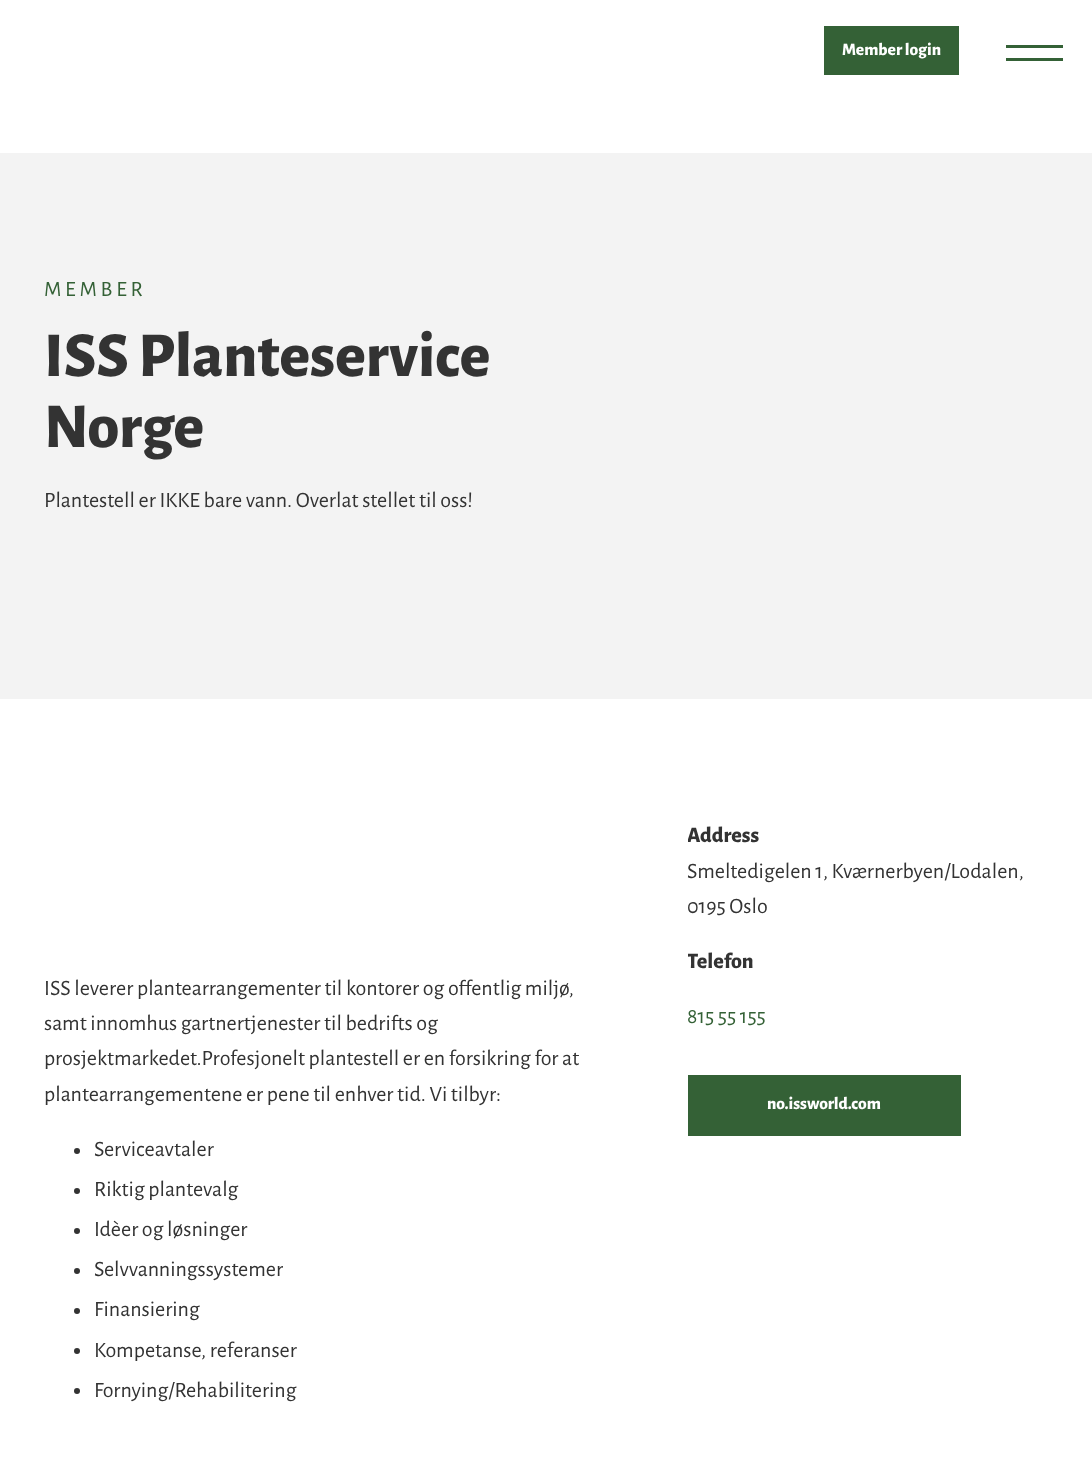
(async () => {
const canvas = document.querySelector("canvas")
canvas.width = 1092
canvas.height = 1468
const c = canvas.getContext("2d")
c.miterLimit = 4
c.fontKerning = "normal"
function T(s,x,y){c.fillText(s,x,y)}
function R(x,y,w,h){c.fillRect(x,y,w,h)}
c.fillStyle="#fff"
R(0,0,1092,1468)
c.fillStyle="#346136"
R(824,26,135,49)
c.font="800 17.5px Alegreya Sans"
c.fillStyle="#fff"
T("Member login",842,55)
c.fillStyle="#346136"
R(1006,45,57,3)
R(1006,58,57,3)
c.fillStyle="#f3f3f3"
R(0,153,1092,546)
c.letterSpacing="3.75px"
c.font="22px Alegreya Sans"
c.fillStyle="#346136"
T("MEMBER",44,296)
c.letterSpacing="0px"
c.font="800 64px Alegreya Sans"
c.fillStyle="#333"
T("ISS Planteservice",44,376)
T("Norge",44,447)
c.font="22px Alegreya Sans"
T("Plantestell er IKKE bare vann. Overlat stellet til oss!",44,507)
T("ISS leverer plantearrangementer til kontorer og offentlig miljø,",44,995)
T("samt innomhus gartnertjenester til bedrifts og",44,1030)
T("prosjektmarkedet.Profesjonelt plantestell er en forsikring for at",44,1065)
T("plantearrangementene er pene til enhver tid. Vi tilbyr:",44,1101)
c.beginPath()
c.arc(77,1151,3,0,7)
c.fill()
T("Serviceavtaler",94,1156)
c.beginPath()
c.arc(77,1191,3,0,7)
c.fill()
T("Riktig plantevalg",94,1196)
c.beginPath()
c.arc(77,1231,3,0,7)
c.fill()
T("Idèer og løsninger",94,1236)
c.beginPath()
c.arc(77,1271,3,0,7)
c.fill()
T("Selvvanningssystemer",94,1276)
c.beginPath()
c.arc(77,1311,3,0,7)
c.fill()
T("Finansiering",94,1316)
c.beginPath()
c.arc(77,1351,3,0,7)
c.fill()
T("Kompetanse, referanser",94,1357)
c.beginPath()
c.arc(77,1391,3,0,7)
c.fill()
T("Fornying/Rehabilitering",94,1397)
c.save()
c.beginPath()
c.rect(688,819,361,337)
c.clip()
c.font="800 22px Alegreya Sans"
T("Address",687,842)
c.restore()
T("Smeltedigelen 1, Kværnerbyen/Lodalen,",687,878)
T("0195 Oslo",687,913)
c.save()
c.beginPath()
c.rect(688,819,361,337)
c.clip()
c.font="800 22px Alegreya Sans"
T("Telefon",687,968)
c.restore()
c.fillStyle="#346136"
T("815 55 155",687,1023)
R(688,1075,273,61)
c.font="800 17.5px Alegreya Sans"
c.fillStyle="#fff"
T("no.issworld.com",767,1109)
})()
